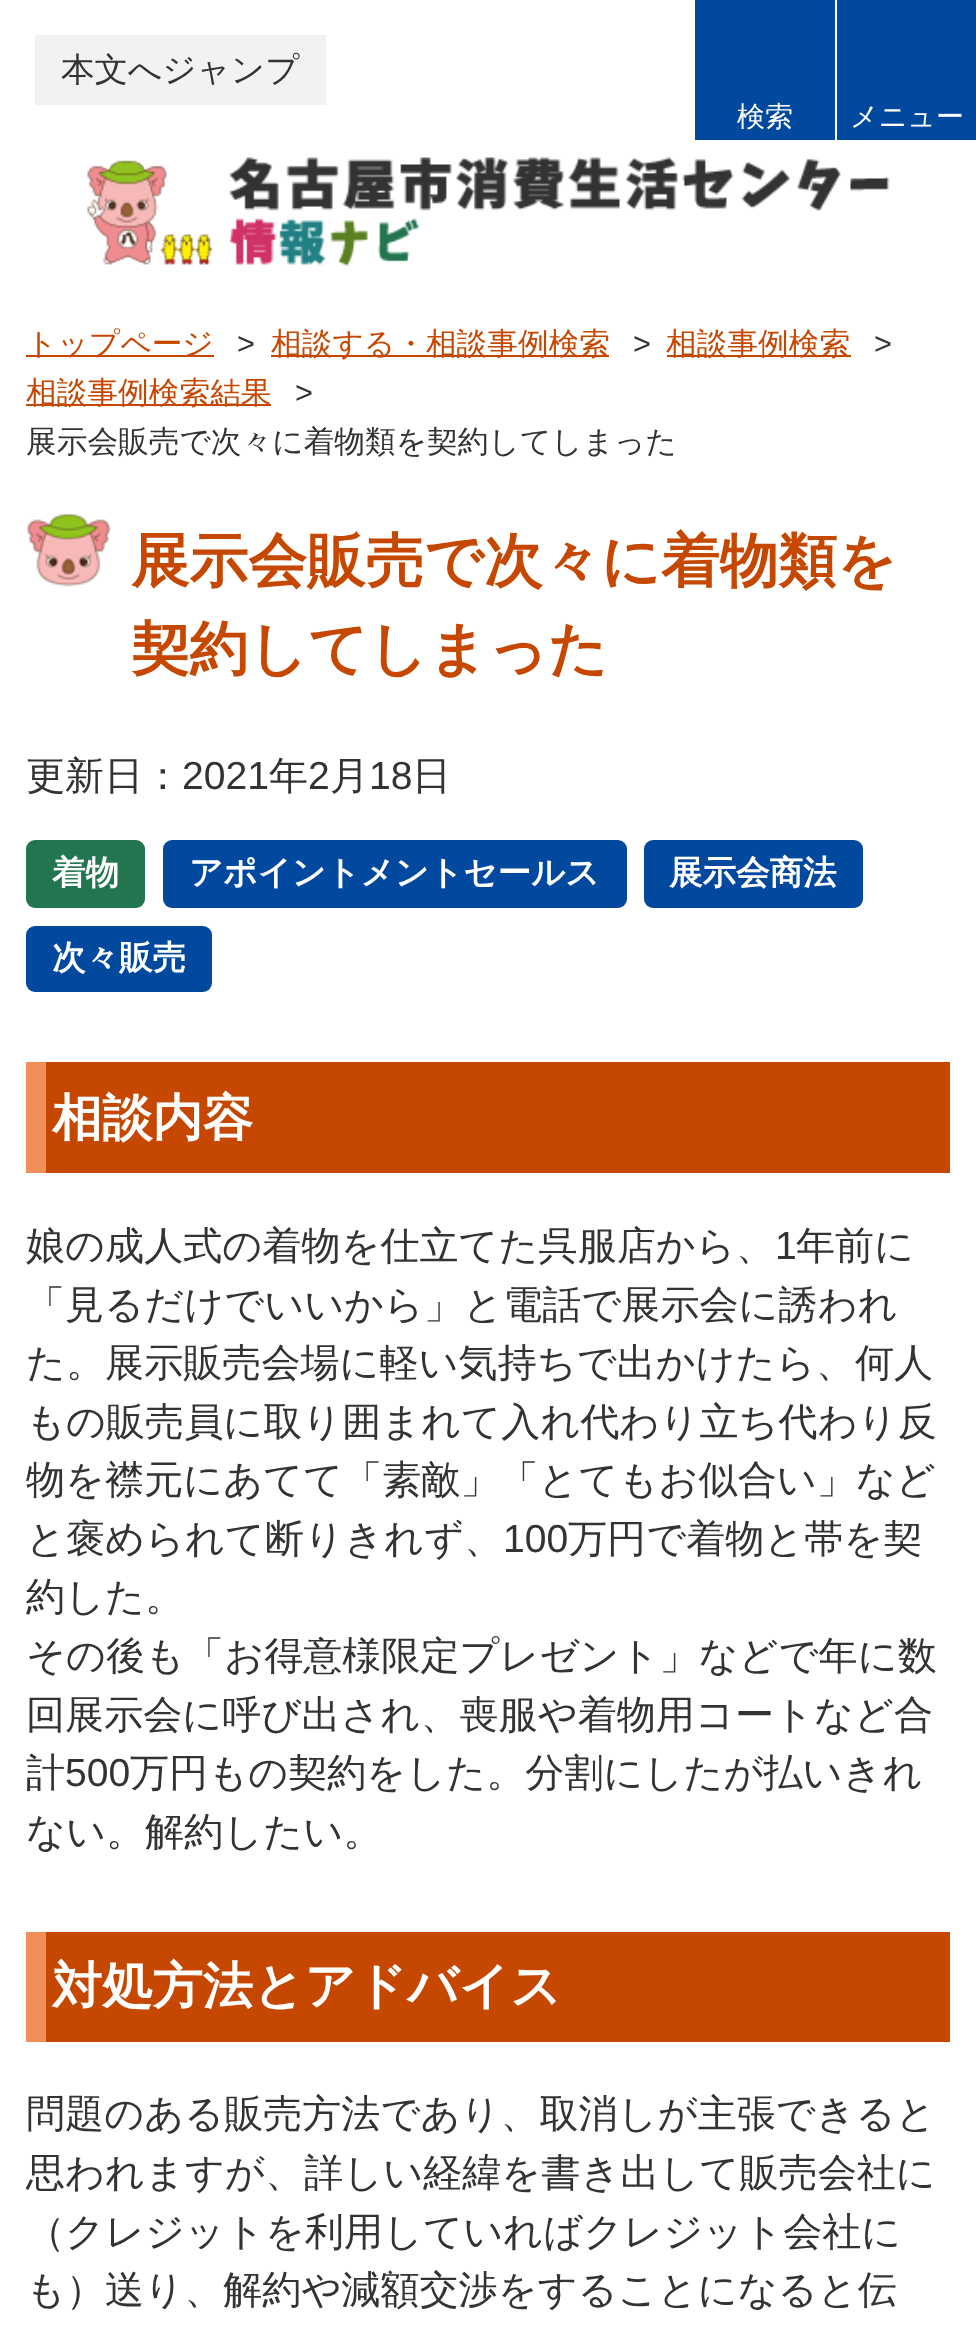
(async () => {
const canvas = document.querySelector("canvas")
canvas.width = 976
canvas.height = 2342
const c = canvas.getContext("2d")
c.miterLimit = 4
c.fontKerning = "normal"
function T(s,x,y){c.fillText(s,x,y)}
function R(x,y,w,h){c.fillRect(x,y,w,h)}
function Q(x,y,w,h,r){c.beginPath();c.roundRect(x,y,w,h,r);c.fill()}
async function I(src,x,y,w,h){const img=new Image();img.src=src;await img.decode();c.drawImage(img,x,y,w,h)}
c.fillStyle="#fff"
R(0,0,976,2342)
c.fillStyle="#f2f2f2"
R(35,35,291,70)
c.font="500 33.5px WenQuanYi Zen Hei"
c.fillStyle="#333"
T("本文へジャンプ",61,81)
c.fillStyle="#00499e"
R(695,0,140,140)
c.font="500 28px WenQuanYi Zen Hei"
c.fillStyle="#fff"
T("検索",737,126)
c.fillStyle="#00499e"
R(837,0,139,140)
c.fillStyle="#fff"
T("メニュー",850,126)
await I("1.png",87,157,803,109)
c.fillStyle="#c64700"
R(26,355,188,2)
c.font="500 30.7px WenQuanYi Zen Hei"
T("トップページ",26,354)
c.font="30.7px Liberation Sans"
c.fillStyle="#333"
T(">",237,354)
c.fillStyle="#c64700"
R(271,355,338,2)
c.font="500 30.7px WenQuanYi Zen Hei"
T("相談する・相談事例検索",271,354)
c.font="30.7px Liberation Sans"
c.fillStyle="#333"
T(">",633,354)
c.fillStyle="#c64700"
R(667,355,184,2)
c.font="500 30.7px WenQuanYi Zen Hei"
T("相談事例検索",666,354)
c.font="30.7px Liberation Sans"
c.fillStyle="#333"
T(">",874,354)
c.fillStyle="#c64700"
R(26,404,245,2)
c.font="500 30.7px WenQuanYi Zen Hei"
T("相談事例検索結果",26,403)
c.font="30.7px Liberation Sans"
c.fillStyle="#333"
T(">",295,403)
c.font="500 30.7px WenQuanYi Zen Hei"
T("展示会販売で次々に着物類を契約してしまった",26,452)
await I("2.png",26,513,85,74)
c.font="bold 58.6px WenQuanYi Zen Hei"
c.fillStyle="#c64700"
T("展示会販売で次々に着物類を",131,581)
T("契約してしまった",131,669)
c.font="500 39.1px WenQuanYi Zen Hei"
c.fillStyle="#333"
T("更新日：",26,789)
c.font="39.1px Liberation Sans"
T("2021",182,789)
c.font="500 39.1px WenQuanYi Zen Hei"
T("年",269,789)
c.font="39.1px Liberation Sans"
T("2",308,789)
c.font="500 39.1px WenQuanYi Zen Hei"
T("月",330,789)
c.font="39.1px Liberation Sans"
T("18",369,789)
c.font="500 39.1px WenQuanYi Zen Hei"
T("日",412,789)
c.fillStyle="#237550"
Q(26,840,119,68,9)
c.font="bold 33.5px WenQuanYi Zen Hei"
c.fillStyle="#fff"
T("着物",52,884)
c.fillStyle="#00499e"
Q(163,840,464,68,9)
c.fillStyle="#fff"
T("アポイントメントセールス",189,884)
c.fillStyle="#00499e"
Q(644,840,219,68,9)
c.fillStyle="#fff"
T("展示会商法",669,884)
c.fillStyle="#00499e"
Q(26,926,186,66,9)
c.fillStyle="#fff"
T("次々販売",52,969)
c.fillStyle="#f18f58"
R(26,1062,20,111)
c.fillStyle="#c64700"
R(46,1062,904,111)
c.font="bold 50.25px WenQuanYi Zen Hei"
c.fillStyle="#fff"
T("相談内容",52,1135)
c.font="500 39.1px WenQuanYi Zen Hei"
c.fillStyle="#333"
T("娘の成人式の着物を仕立てた呉服店から、",26,1259)
c.font="39.1px Liberation Sans"
T("1",775,1259)
c.font="500 39.1px WenQuanYi Zen Hei"
T("年前に",796,1259)
T("「見るだけでいいから」と電話で展示会に誘われ",26,1318)
T("た。展示販売会場に軽い気持ちで出かけたら、何人",26,1376)
T("もの販売員に取り囲まれて入れ代わり立ち代わり反",26,1435)
T("物を襟元にあてて「素敵」「とてもお似合い」など",26,1493)
T("と褒められて断りきれず、",26,1552)
c.font="39.1px Liberation Sans"
T("100",503,1552)
c.font="500 39.1px WenQuanYi Zen Hei"
T("万円で着物と帯を契",568,1552)
T("約した。",26,1610)
T("その後も「お得意様限定プレゼント」などで年に数",26,1669)
T("回展示会に呼び出され、喪服や着物用コートなど合",26,1728)
T("計",26,1786)
c.font="39.1px Liberation Sans"
T("500",65,1786)
c.font="500 39.1px WenQuanYi Zen Hei"
T("万円もの契約をした。分割にしたが払いきれ",130,1786)
T("ない。解約したい。",26,1845)
c.fillStyle="#f18f58"
R(26,1932,20,110)
c.fillStyle="#c64700"
R(46,1932,904,110)
c.font="bold 50.25px WenQuanYi Zen Hei"
c.fillStyle="#fff"
T("対処方法とアドバイス",52,2003)
c.font="500 39.1px WenQuanYi Zen Hei"
c.fillStyle="#333"
T("問題のある販売方法であり、取消しが主張できると",26,2127)
T("思われますが、詳しい経緯を書き出して販売会社に",26,2186)
T("（クレジットを利用していればクレジット会社に",26,2245)
T("も）送り、解約や減額交渉をすることになると伝",26,2303)
})()
